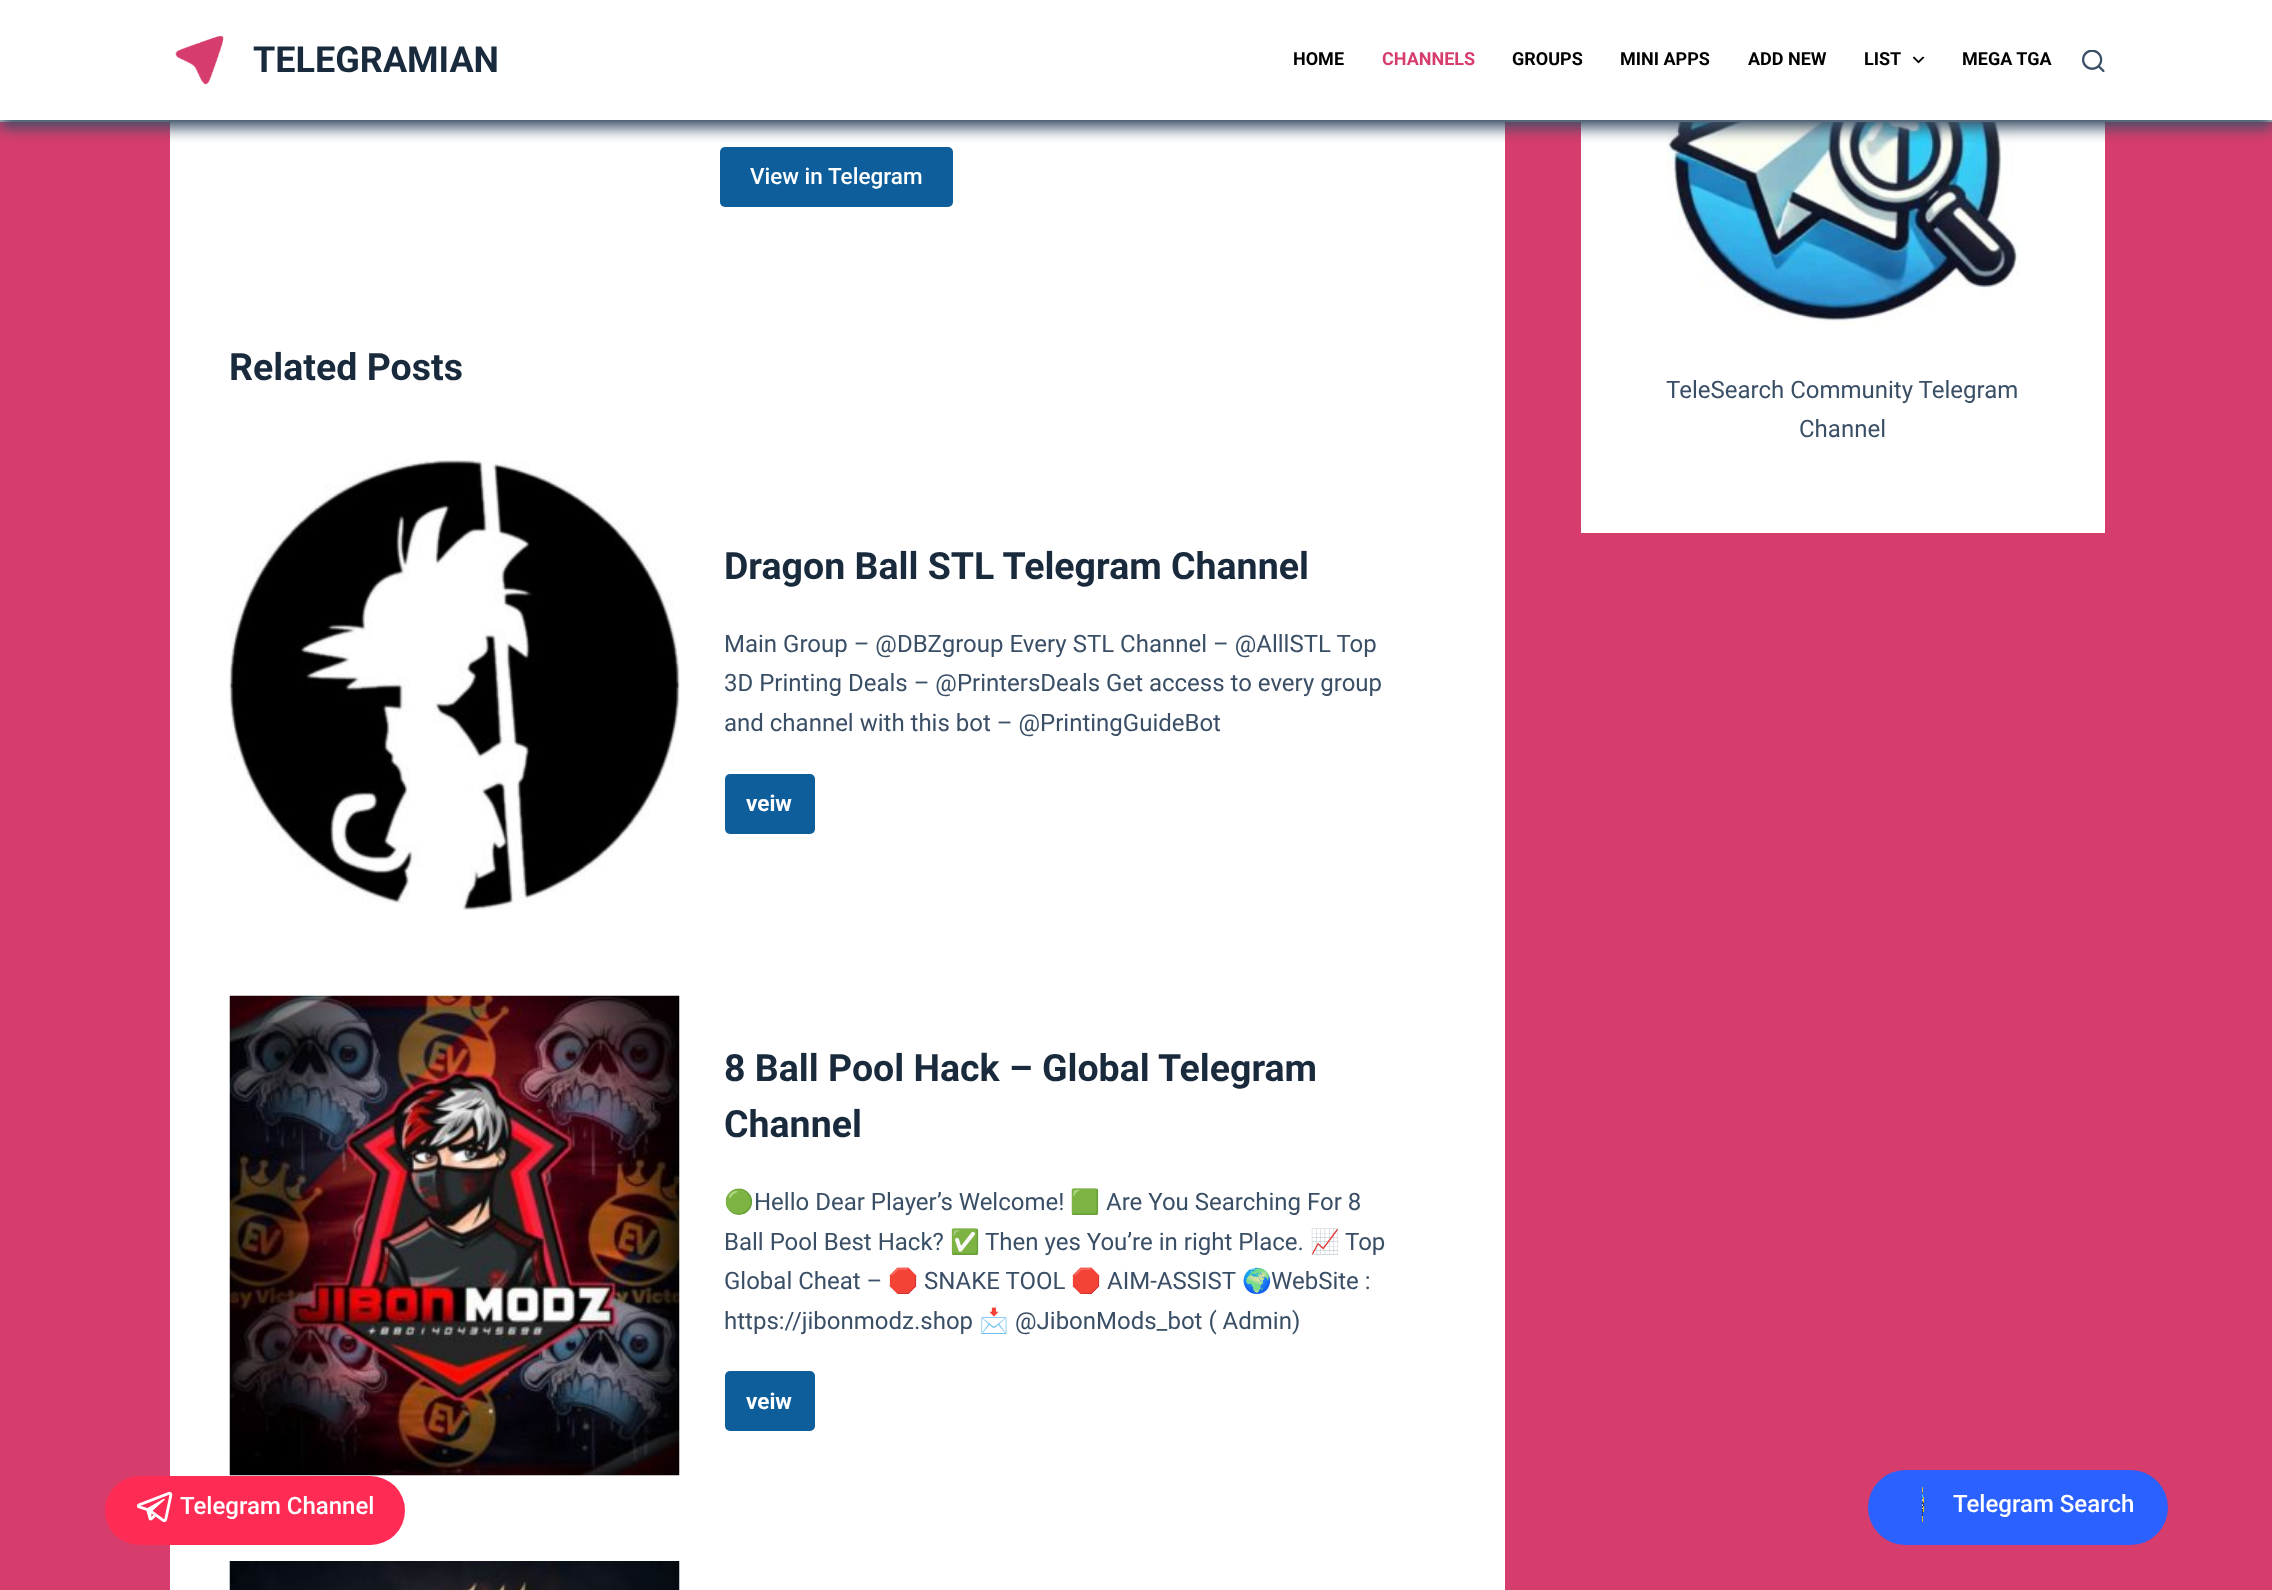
(async () => {
const canvas = document.querySelector("canvas")
canvas.width = 2272
canvas.height = 1590
const c = canvas.getContext("2d")
c.miterLimit = 4
c.fontKerning = "normal"
function T(s,x,y){c.fillText(s,x,y)}
function R(x,y,w,h){c.fillRect(x,y,w,h)}
function Q(x,y,w,h,r){c.beginPath();c.roundRect(x,y,w,h,r);c.fill()}
async function I(src,x,y,w,h){const img=new Image();img.src=src;await img.decode();c.drawImage(img,x,y,w,h)}
c.fillStyle="#d73d6c"
R(0,0,2272,1590)
c.fillStyle="#fff"
R(0,0,2272,120)
c.fillStyle="#dadada"
R(0,120,2272,2)
c.fillStyle="#fff"
R(170,122,1335,1468)
c.fillStyle="#0d5e9b"
Q(720,147,233,60,5)
c.fillStyle="#fff"
R(1581,122,524,411)
await I("7.png",1666,122,355,204)
c.save()
c.beginPath()
c.rect(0,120,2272,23)
c.clip()
c.fillStyle="#3a4f66"
c.filter="blur(7.5px)"
c.beginPath()
c.rect(0,8,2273,120)
c.fill()
c.filter="none"
c.restore()
await I("1.png",175,35,49,50)
c.font="bold 36px Roboto"
c.fillStyle="#192a3d"
T("TELEGRAMIAN",253,72)
c.font="bold 18px Roboto"
c.fillStyle="#000"
T("HOME",1293,65)
c.fillStyle="#d73d6c"
T("CHANNELS",1382,65)
c.fillStyle="#000"
T("GROUPS",1512,65)
T("MINI APPS",1620,65)
T("ADD NEW",1748,65)
T("LIST",1864,65)
await I("2.png",1913,56,12,8)
T("MEGA TGA",1962,65)
await I("3.png",2082,50,23,22)
c.font="500 22.5px Roboto"
c.fillStyle="#fff"
T("View in Telegram",750,184)
c.font="bold 37.5px Roboto"
c.fillStyle="#192a3d"
T("Related Posts",229,380)
await I("4.png",229,460,451,450)
T("Dragon Ball STL Telegram Channel",724,579)
c.font="24px Roboto"
c.fillStyle="#3a4f66"
T("Main Group – @DBZgroup Every STL Channel – @AlllSTL Top",724,652)
T("3D Printing Deals – @PrintersDeals Get access to every group",724,691)
T("and channel with this bot – @PrintingGuideBot",724,731)
c.fillStyle="#0d5e9b"
Q(725,774,90,60,5)
c.font="bold 22.5px Roboto"
c.fillStyle="#fff"
T("veiw",746,811)
await I("5.png",229,995,451,481)
c.font="bold 37.5px Roboto"
c.fillStyle="#192a3d"
T("8 Ball Pool Hack – Global Telegram",724,1081)
T("Channel",724,1137)
c.font="24px Noto Color Emoji"
c.fillStyle="#3a4f66"
T("🟢",724,1210)
c.font="24px Roboto"
T("Hello Dear Player’s Welcome!",754,1210)
c.font="24px Noto Color Emoji"
T("🟩",1070,1210)
c.font="24px Roboto"
T("Are You Searching For 8",1106,1210)
T("Ball Pool Best Hack?",724,1250)
c.font="24px Noto Color Emoji"
T("✅",950,1250)
c.font="24px Roboto"
T("Then yes You’re in right Place.",985,1250)
c.font="24px Noto Color Emoji"
T("📈",1310,1250)
c.font="24px Roboto"
T("Top",1345,1250)
T("Global Cheat –",724,1289)
c.font="24px Noto Color Emoji"
T("🛑",888,1289)
c.font="24px Roboto"
T("SNAKE TOOL",924,1289)
c.font="24px Noto Color Emoji"
T("🛑",1071,1289)
c.font="24px Roboto"
T("AIM-ASSIST",1107,1289)
c.font="24px Noto Color Emoji"
T("🌍",1242,1289)
c.font="24px Roboto"
T("WebSite :",1271,1289)
T("https://jibonmodz.shop",724,1329)
c.font="24px Noto Color Emoji"
T("📩",979,1329)
c.font="24px Roboto"
T("@JibonMods_bot ( Admin)",1015,1329)
c.fillStyle="#0d5e9b"
Q(725,1371,90,60,5)
c.font="bold 22.5px Roboto"
c.fillStyle="#fff"
T("veiw",746,1409)
await I("6.png",229,1561,451,29)
c.font="24px Roboto"
c.fillStyle="#3a4f66"
T("TeleSearch Community Telegram",1666,398)
T("Channel",1799,437)
c.fillStyle="#fe2b54"
Q(105,1476,300,69,34.5)
await I("8.png",137,1491,36,32)
c.font="500 24px Roboto"
c.fillStyle="#fff"
T("Telegram Channel",180,1514)
c.fillStyle="#2b61fe"
Q(1868,1470,300,75,37.5)
await I("9.png",1922,1487,2,35)
c.fillStyle="#fff"
T("Telegram Search",1953,1512)
})()
